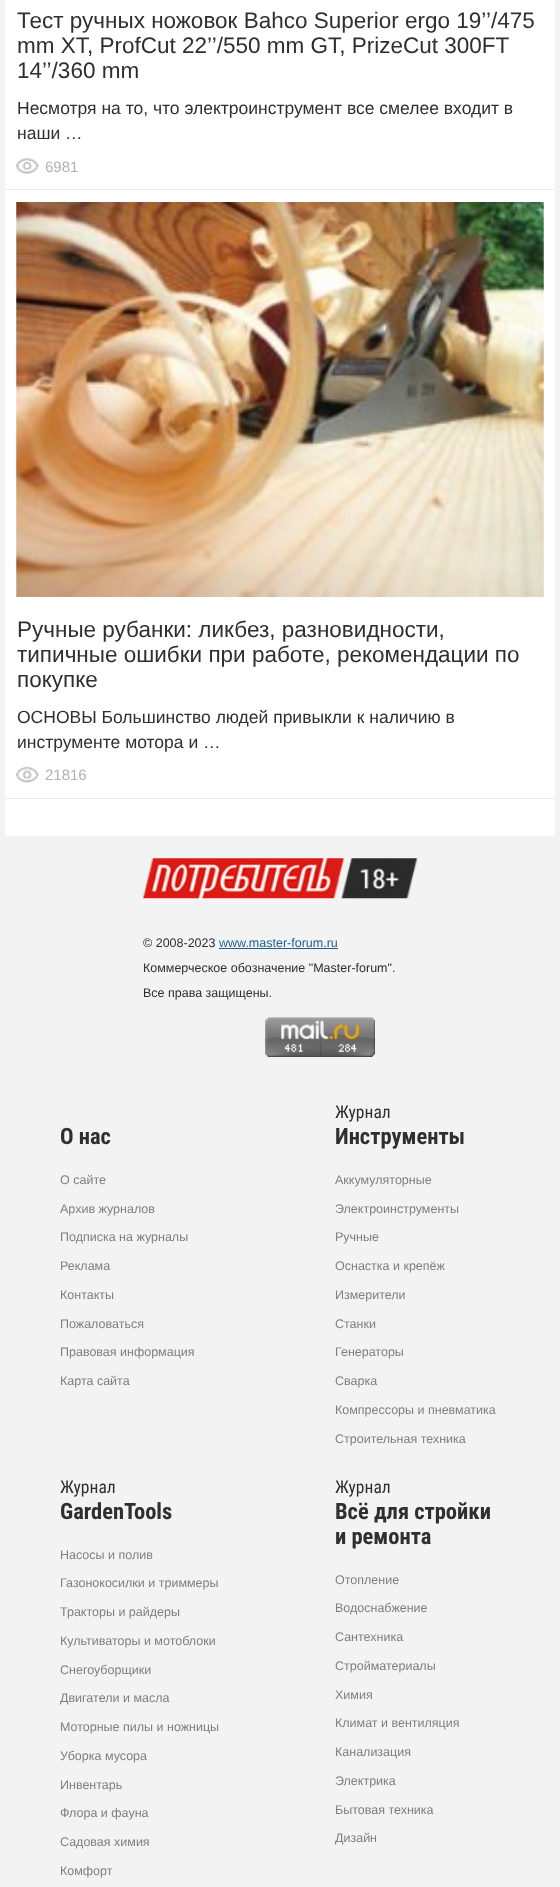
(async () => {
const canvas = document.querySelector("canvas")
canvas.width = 560
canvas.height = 1887
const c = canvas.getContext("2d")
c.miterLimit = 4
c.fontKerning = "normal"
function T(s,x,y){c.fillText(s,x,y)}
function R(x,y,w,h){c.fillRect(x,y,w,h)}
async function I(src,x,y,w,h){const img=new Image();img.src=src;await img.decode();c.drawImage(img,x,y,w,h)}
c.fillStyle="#f3f3f3"
R(0,0,560,1887)
c.fillStyle="#fff"
R(5,0,550,836)
c.fillStyle="#eaeaea"
R(5,189,549,1)
c.font="22.5px Liberation Sans"
c.fillStyle="#2f2f2f"
T("Тест ручных ножовок Bahco Superior ergo 19’’/475",17,28)
T("mm XT, ProfCut 22’’/550 mm GT, PrizeCut 300FT",17,53)
T("14’’/360 mm",17,78)
c.font="17.5px Liberation Sans"
T("Несмотря на то, что электроинструмент все смелее входит в",17,114)
T("наши …",17,139)
await I("1.png",16,158,23,16)
c.font="15px Liberation Sans"
c.fillStyle="#b2b2b2"
T("6981",45,172)
c.fillStyle="#eaeaea"
R(5,798,549,1)
await I("2.png",16,202,528,395)
c.font="22.5px Liberation Sans"
c.fillStyle="#2f2f2f"
T("Ручные рубанки: ликбез, разновидности,",17,637)
T("типичные ошибки при работе, рекомендации по",17,662)
T("покупке",17,687)
c.font="17.5px Liberation Sans"
T("ОСНОВЫ Большинство людей привыкли к наличию в",17,723)
T("инструменте мотора и …",17,748)
await I("3.png",16,766,23,17)
c.font="15px Liberation Sans"
c.fillStyle="#b2b2b2"
T("21816",45,780)
await I("4.png",142,858,276,41)
c.font="12.5px Liberation Sans"
c.fillStyle="#2f2f2f"
T("© 2008-2023",143,947)
c.fillStyle="#1e5f8f"
T("www.master-forum.ru",219,947)
R(219,948,119,1)
c.fillStyle="#2f2f2f"
T("Коммерческое обозначение \"Master-forum\".",143,972)
T("Все права защищены.",143,997)
await I("5.png",265,1017,110,40)
c.font="bold 22.5px Roboto Condensed"
T("О нас",60,1144)
c.font="12.5px Liberation Sans"
c.fillStyle="#7f7f7f"
T("О сайте",60,1184)
T("Архив журналов",60,1213)
T("Подписка на журналы",60,1241)
T("Реклама",60,1270)
T("Контакты",60,1299)
T("Пожаловаться",60,1328)
T("Правовая информация",60,1356)
T("Карта сайта",60,1385)
c.font="17.5px Roboto Condensed"
c.fillStyle="#2f2f2f"
T("Журнал",335,1118)
c.font="bold 22.5px Roboto Condensed"
T("Инструменты",335,1144)
c.font="12.5px Liberation Sans"
c.fillStyle="#7f7f7f"
T("Аккумуляторные",335,1184)
T("Электроинструменты",335,1213)
T("Ручные",335,1241)
T("Оснастка и крепёж",335,1270)
T("Измерители",335,1299)
T("Станки",335,1328)
T("Генераторы",335,1356)
T("Сварка",335,1385)
T("Компрессоры и пневматика",335,1414)
T("Строительная техника",335,1443)
c.font="17.5px Roboto Condensed"
c.fillStyle="#2f2f2f"
T("Журнал",60,1493)
c.font="bold 22.5px Roboto Condensed"
T("GardenTools",60,1519)
c.font="12.5px Liberation Sans"
c.fillStyle="#7f7f7f"
T("Насосы и полив",60,1559)
T("Газонокосилки и триммеры",60,1587)
T("Тракторы и райдеры",60,1616)
T("Культиваторы и мотоблоки",60,1645)
T("Снегоуборщики",60,1674)
T("Двигатели и масла",60,1702)
T("Моторные пилы и ножницы",60,1731)
T("Уборка мусора",60,1760)
T("Инвентарь",60,1789)
T("Флора и фауна",60,1817)
T("Садовая химия",60,1846)
T("Комфорт",60,1875)
c.font="17.5px Roboto Condensed"
c.fillStyle="#2f2f2f"
T("Журнал",335,1493)
c.font="bold 22.5px Roboto Condensed"
T("Всё для стройки",335,1519)
T("и ремонта",335,1544)
c.font="12.5px Liberation Sans"
c.fillStyle="#7f7f7f"
T("Отопление",335,1584)
T("Водоснабжение",335,1612)
T("Сантехника",335,1641)
T("Стройматериалы",335,1670)
T("Химия",335,1699)
T("Климат и вентиляция",335,1727)
T("Канализация",335,1756)
T("Электрика",335,1785)
T("Бытовая техника",335,1814)
T("Дизайн",335,1842)
})()
